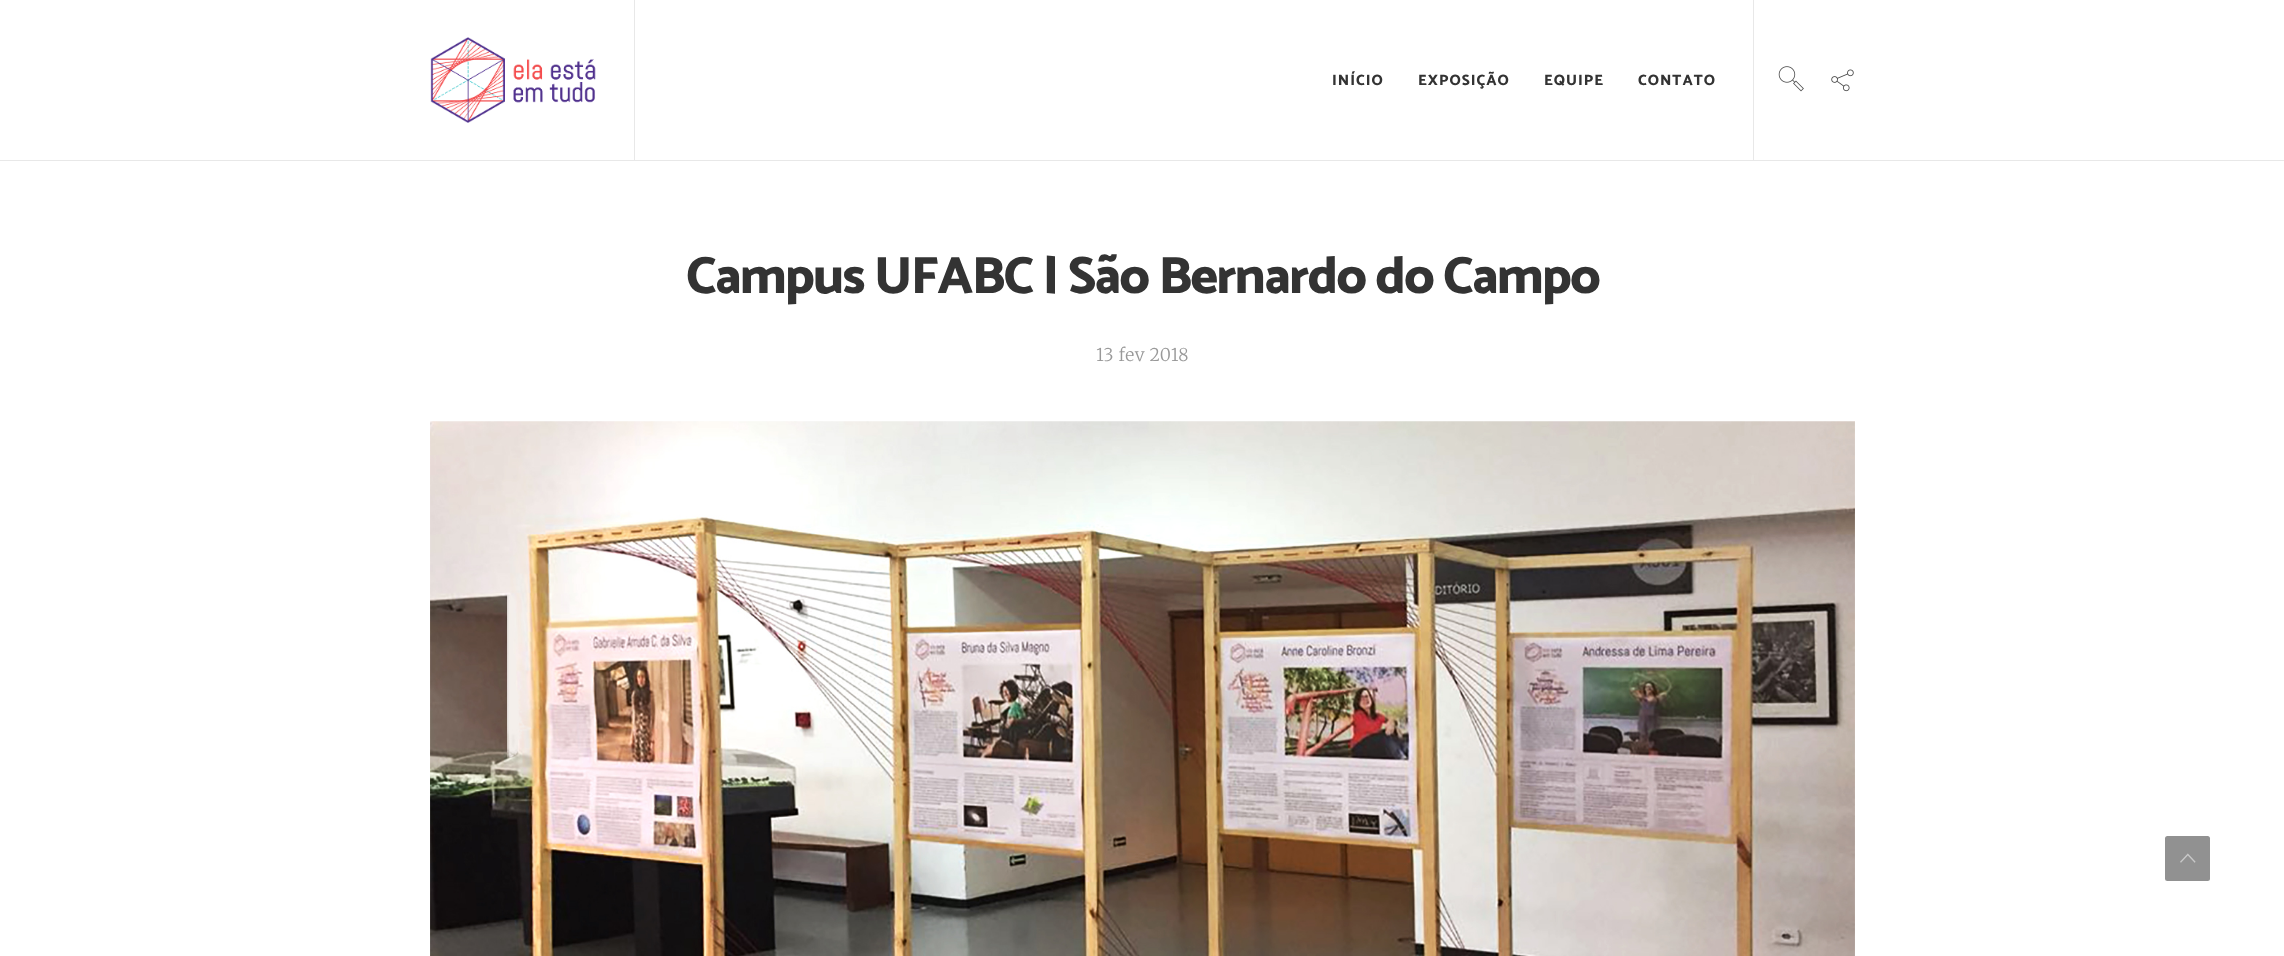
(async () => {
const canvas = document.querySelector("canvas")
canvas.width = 2284
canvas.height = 956
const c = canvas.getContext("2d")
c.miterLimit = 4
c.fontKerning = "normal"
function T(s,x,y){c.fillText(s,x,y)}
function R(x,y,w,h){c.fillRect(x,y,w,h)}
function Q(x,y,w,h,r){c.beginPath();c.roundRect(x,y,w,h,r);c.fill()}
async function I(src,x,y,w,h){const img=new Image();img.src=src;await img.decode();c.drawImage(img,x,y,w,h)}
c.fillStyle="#fff"
R(0,0,2284,956)
c.fillStyle="#e8e8e8"
R(0,160,2284,1)
R(634,0,1,160)
await I("1.png",430,37,166,86)
c.letterSpacing="1px"
c.font="800 15px Catamaran"
c.fillStyle="#333"
T("INÍCIO",1332,85)
T("EXPOSIÇÃO",1418,85)
T("EQUIPE",1544,85)
T("CONTATO",1638,85)
c.fillStyle="#e8e8e8"
R(1753,0,1,160)
await I("2.png",1778,66,26,26)
await I("3.png",1831,69,23,23)
c.letterSpacing="-1.55px"
c.font="800 52.5px Catamaran"
c.fillStyle="#333"
T("Campus UFABC | São Bernardo do Campo",686,293)
c.letterSpacing="0.4px"
c.font="300 17.5px Merriweather"
c.fillStyle="#999"
T("13 fev 2018",1096,361)
await I("4.png",430,421,1425,535)
c.fillStyle="#919191"
Q(2165,836,45,45,2.5)
await I("5.png",2180,853,16,10)
})()
